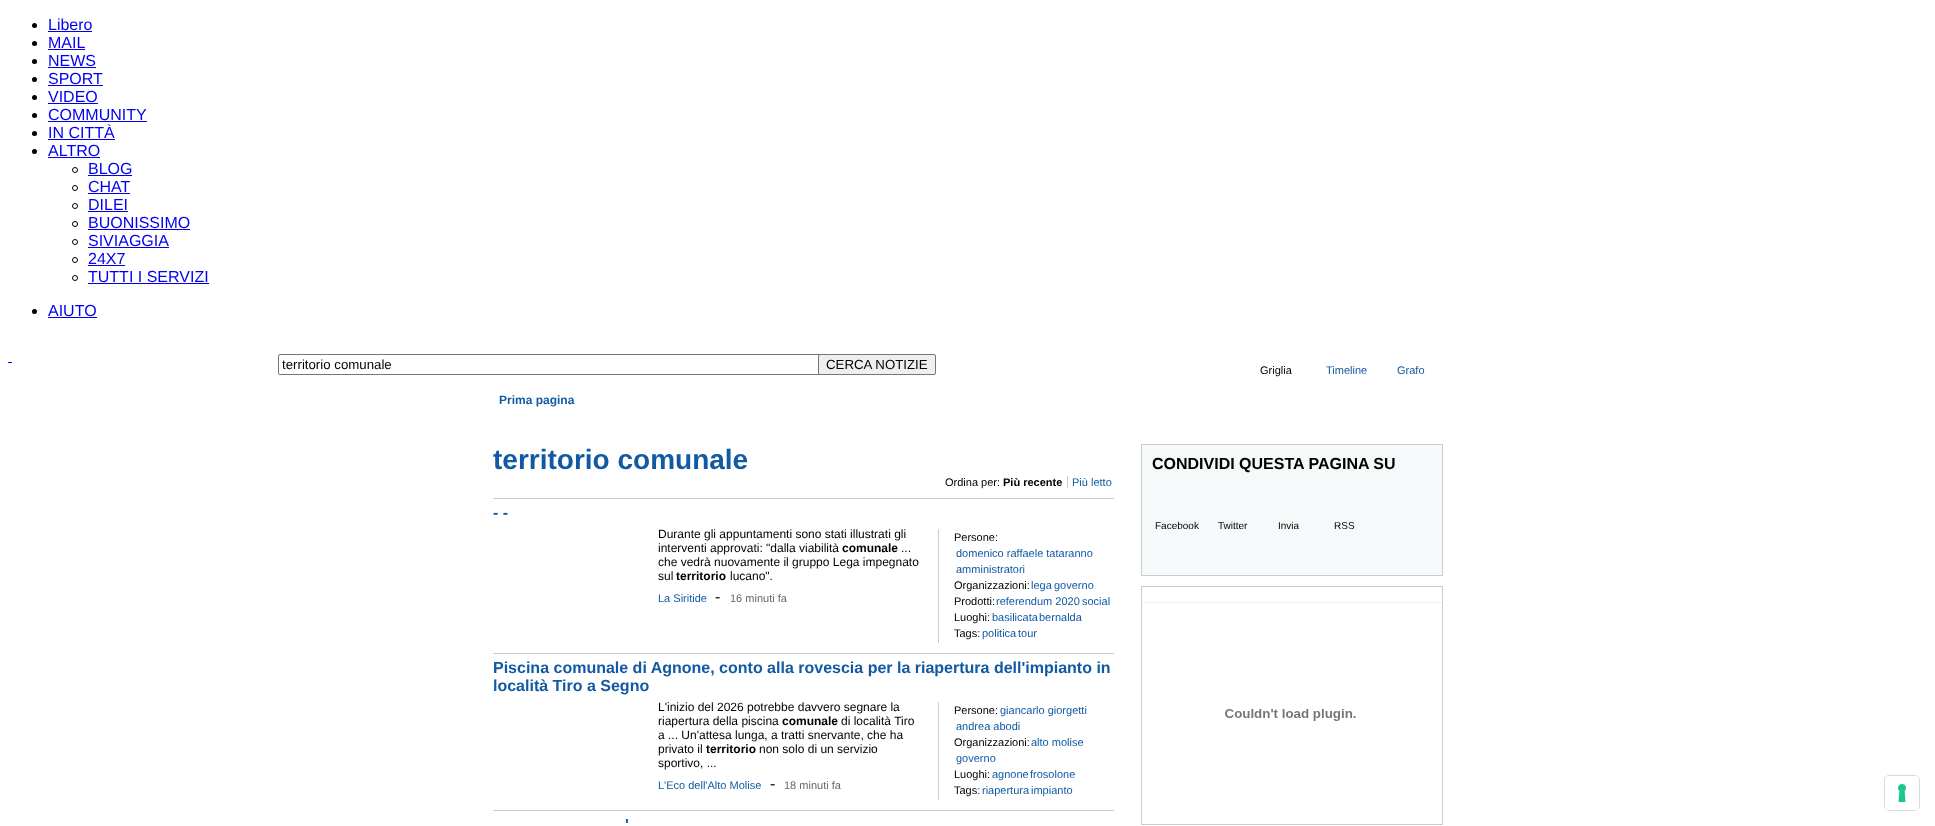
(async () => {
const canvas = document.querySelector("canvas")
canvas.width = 1935
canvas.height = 826
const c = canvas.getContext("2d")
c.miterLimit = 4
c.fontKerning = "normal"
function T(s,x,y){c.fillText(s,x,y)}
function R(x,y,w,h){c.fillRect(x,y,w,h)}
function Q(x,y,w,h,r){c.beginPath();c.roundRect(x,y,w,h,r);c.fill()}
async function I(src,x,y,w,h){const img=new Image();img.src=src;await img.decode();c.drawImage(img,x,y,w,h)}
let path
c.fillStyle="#fff"
R(0,0,1935,826)
c.fillStyle="#000"
c.beginPath()
c.arc(34.5,25.5,2.5,0,7)
c.fill()
c.font="16px Liberation Sans"
c.fillStyle="#00e"
T("Libero",48,30)
R(48,31,44,1)
c.fillStyle="#000"
c.beginPath()
c.arc(34.5,43.5,2.5,0,7)
c.fill()
c.fillStyle="#00e"
T("MAIL",48,48)
R(48,49,37,1)
c.fillStyle="#000"
c.beginPath()
c.arc(34.5,61.5,2.5,0,7)
c.fill()
c.fillStyle="#00e"
T("NEWS",48,66)
R(48,67,48,1)
c.fillStyle="#000"
c.beginPath()
c.arc(34.5,79.5,2.5,0,7)
c.fill()
c.fillStyle="#00e"
T("SPORT",48,84)
R(48,85,55,1)
c.fillStyle="#000"
c.beginPath()
c.arc(34.5,97.5,2.5,0,7)
c.fill()
c.fillStyle="#00e"
T("VIDEO",48,102)
R(48,103,50,1)
c.fillStyle="#000"
c.beginPath()
c.arc(34.5,115.5,2.5,0,7)
c.fill()
c.fillStyle="#00e"
T("COMMUNITY",48,120)
R(48,121,99,1)
c.fillStyle="#000"
c.beginPath()
c.arc(34.5,133.5,2.5,0,7)
c.fill()
c.fillStyle="#00e"
T("IN CITTÀ",48,138)
R(48,139,67,1)
c.fillStyle="#000"
c.beginPath()
c.arc(34.5,151.5,2.5,0,7)
c.fill()
c.fillStyle="#00e"
T("ALTRO",48,156)
R(48,157,52,1)
c.beginPath()
c.arc(75,170,2.5,0,7)
c.strokeStyle="#000"
c.stroke()
T("BLOG",88,174)
R(88,175,44,1)
c.beginPath()
c.arc(75,188,2.5,0,7)
c.stroke()
T("CHAT",88,192)
R(88,193,42,1)
c.beginPath()
c.arc(75,206,2.5,0,7)
c.stroke()
T("DILEI",88,210)
R(88,211,40,1)
c.beginPath()
c.arc(75,224,2.5,0,7)
c.stroke()
T("BUONISSIMO",88,228)
R(88,229,102,1)
c.beginPath()
c.arc(75,242,2.5,0,7)
c.stroke()
T("SIVIAGGIA",88,246)
R(88,247,81,1)
c.beginPath()
c.arc(75,260,2.5,0,7)
c.stroke()
T("24X7",88,264)
R(88,265,37,1)
c.beginPath()
c.arc(75,278,2.5,0,7)
c.stroke()
T("TUTTI I SERVIZI",88,282)
R(88,283,121,1)
c.fillStyle="#000"
c.beginPath()
c.arc(34.5,311.5,2.5,0,7)
c.fill()
c.fillStyle="#00e"
T("AIUTO",48,316)
R(48,317,49,1)
R(8,362,4,1)
c.beginPath()
c.roundRect(278.5,354.5,547,20,1.5)
c.strokeStyle="#767676"
c.stroke()
c.font="13.25px Liberation Sans"
c.fillStyle="#000"
T("territorio comunale",282,369)
c.fillStyle="#efefef"
c.beginPath()
c.roundRect(818.5,354.5,117,20,1.5)
c.fill()
c.stroke()
c.fillStyle="#000"
T("CERCA NOTIZIE",826,369)
c.font="11px Liberation Sans"
T("Griglia",1260,374)
c.fillStyle="#115aa3"
T("Timeline",1326,374)
T("Grafo",1397,374)
c.font="bold 12px Liberation Sans"
T("Prima pagina",499,404)
c.fillStyle="#ccc"
R(493,498,621,1)
c.save()
c.beginPath()
c.rect(493,444,648,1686)
c.clip()
c.font="bold 28px Liberation Sans"
c.fillStyle="#115aa3"
T("territorio comunale",493,469)
c.restore()
c.font="11px Liberation Sans"
c.fillStyle="#000"
T("Ordina per:",945,486)
c.font="bold 11px Liberation Sans"
T("Più recente",1003,486)
c.fillStyle="#ccc"
R(1067,476,1,12)
c.font="11px Liberation Sans"
c.fillStyle="#115aa3"
T("Più letto",1072,486)
c.fillStyle="#ccc"
R(493,653,621,1)
c.font="bold 16px Liberation Sans"
c.fillStyle="#115aa3"
T("- -",493,518)
c.font="12px Liberation Sans"
c.fillStyle="#000"
T("Durante gli appuntamenti sono stati illustrati gli",658,538)
T("interventi approvati: \"dalla viabilità",658,552)
c.font="bold 12px Liberation Sans"
T("comunale",842,552)
c.font="12px Liberation Sans"
T("...",901,552)
T("che vedrà nuovamente il gruppo Lega impegnato",658,566)
T("sul",658,580)
c.font="bold 12px Liberation Sans"
T("territorio",676,580)
c.font="12px Liberation Sans"
T("lucano\".",730,580)
c.font="11px Liberation Sans"
c.fillStyle="#115aa3"
T("La Siritide",658,602)
c.font="16px Liberation Sans"
c.fillStyle="#000"
T("-",715,602)
c.font="11px Liberation Sans"
c.fillStyle="#696666"
T("16 minuti fa",730,602)
c.fillStyle="#ccc"
R(938,529,1,114)
c.fillStyle="#000"
T("Persone:",954,541)
c.fillStyle="#115aa3"
T("domenico raffaele tataranno",956,557)
T("amministratori",956,573)
c.fillStyle="#000"
T("Organizzazioni:",954,589)
c.fillStyle="#115aa3"
T("lega",1031,589)
T("governo",1054,589)
c.fillStyle="#000"
T("Prodotti:",954,605)
c.fillStyle="#115aa3"
T("referendum 2020",996,605)
T("social",1082,605)
c.fillStyle="#000"
T("Luoghi:",954,621)
c.fillStyle="#115aa3"
T("basilicata",992,621)
T("bernalda",1039,621)
c.fillStyle="#000"
T("Tags:",954,637)
c.fillStyle="#115aa3"
T("politica",982,637)
T("tour",1018,637)
c.fillStyle="#ccc"
R(493,810,621,1)
c.font="bold 16px Liberation Sans"
c.fillStyle="#115aa3"
T("Piscina comunale di Agnone, conto alla rovescia per la riapertura dell'impianto in",493,673)
T("località Tiro a Segno",493,691)
c.font="12px Liberation Sans"
c.fillStyle="#000"
T("L'inizio del 2026 potrebbe davvero segnare la",658,711)
T("riapertura della piscina",658,725)
c.font="bold 12px Liberation Sans"
T("comunale",782,725)
c.font="12px Liberation Sans"
T("di località Tiro",841,725)
T("a ... Un'attesa lunga, a tratti snervante, che ha",658,739)
T("privato il",658,753)
c.font="bold 12px Liberation Sans"
T("territorio",706,753)
c.font="12px Liberation Sans"
T("non solo di un servizio",759,753)
T("sportivo, ...",658,767)
c.font="11px Liberation Sans"
c.fillStyle="#115aa3"
T("L'Eco dell'Alto Molise",658,789)
c.font="16px Liberation Sans"
c.fillStyle="#000"
T("-",770,789)
c.font="11px Liberation Sans"
c.fillStyle="#696666"
T("18 minuti fa",784,789)
c.fillStyle="#ccc"
R(938,702,1,98)
c.fillStyle="#000"
T("Persone:",954,714)
c.fillStyle="#115aa3"
T("giancarlo giorgetti",1000,714)
T("andrea abodi",956,730)
c.fillStyle="#000"
T("Organizzazioni:",954,746)
c.fillStyle="#115aa3"
T("alto molise",1031,746)
T("governo",956,762)
c.fillStyle="#000"
T("Luoghi:",954,778)
c.fillStyle="#115aa3"
T("agnone",992,778)
T("frosolone",1030,778)
c.fillStyle="#000"
T("Tags:",954,794)
c.fillStyle="#115aa3"
T("riapertura",982,794)
T("impianto",1031,794)
c.font="bold 16px Liberation Sans"
T("'",625,830)
c.strokeStyle="#ccc"
c.strokeRect(1141.5,444.5,301,131)
c.fillStyle="#f5f9fa"
R(1142,445,300,130)
c.fillStyle="#000"
T("CONDIVIDI QUESTA PAGINA SU",1152,469)
c.font="10px Liberation Sans"
T("Facebook",1155,529)
T("Twitter",1218,529)
T("Invia",1278,529)
T("RSS",1334,529)
c.strokeRect(1141.5,586.5,301,238)
path = new Path2D("M1142 602.5h300")
c.strokeStyle="#e0e0e0"
c.setLineDash([1,1])
c.stroke(path)
await I("1.png",1225,709,131,12)
c.beginPath()
c.roundRect(1884.5,775.5,35,35,4.5)
c.strokeStyle="#d9d9d9"
c.setLineDash([])
c.stroke()
c.fillStyle="#fff"
Q(1885,776,34,34,4)
await I("2.png",1898,784,8,18)
})()
